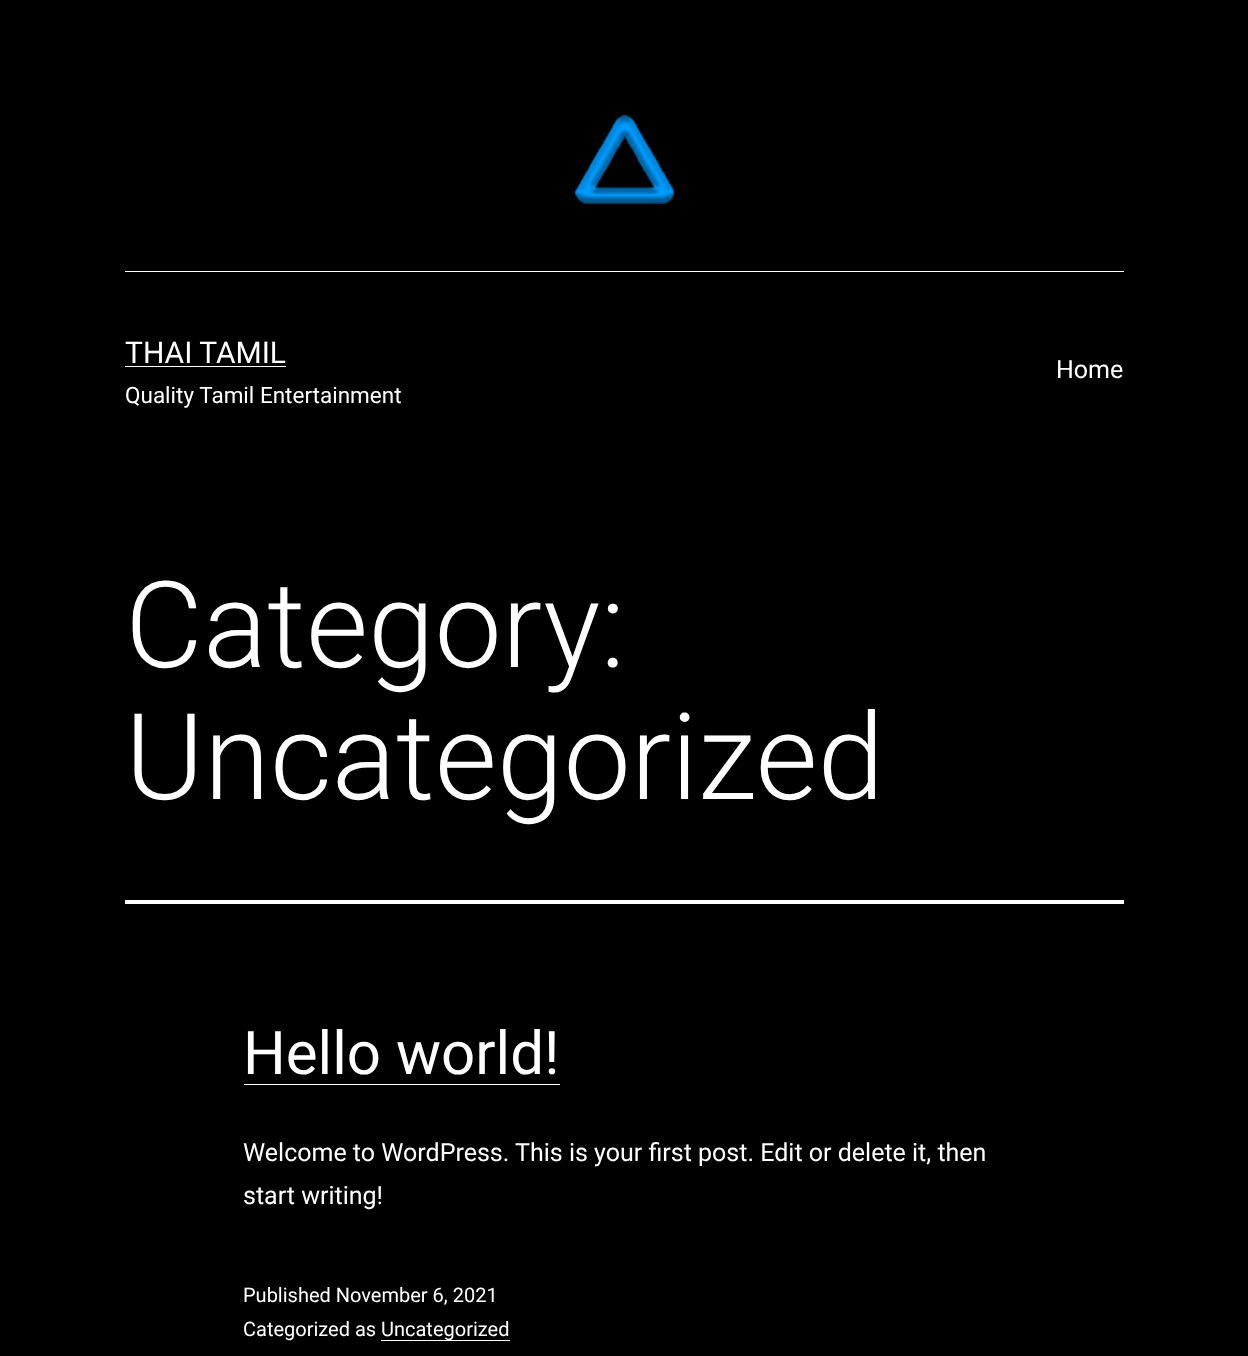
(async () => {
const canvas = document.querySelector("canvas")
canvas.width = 1248
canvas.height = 1356
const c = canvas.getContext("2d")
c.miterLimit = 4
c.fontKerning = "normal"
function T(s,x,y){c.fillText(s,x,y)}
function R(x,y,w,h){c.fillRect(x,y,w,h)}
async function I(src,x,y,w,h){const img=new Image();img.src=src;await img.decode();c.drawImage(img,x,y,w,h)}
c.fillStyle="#000"
R(0,0,1248,1356)
c.fillStyle="#fff"
R(125,271,999,1)
await I("1.png",574,114,100,90)
c.font="30px Roboto"
T("THAI TAMIL",125,363)
R(125,366,161,1)
c.font="22.5px Roboto"
T("Quality Tamil Entertainment",125,403)
c.font="25px Roboto"
T("Home",1056,378)
R(125,900,999,4)
c.font="300 120px Roboto"
T("Category:",125,667)
T("Uncategorized",125,799)
c.font="60px Roboto"
T("Hello world!",243,1074)
R(244,1084,316,1)
c.font="25px Roboto"
T("Welcome to WordPress. This is your first post. Edit or delete it, then",243,1161)
T("start writing!",243,1204)
c.font="20px Roboto"
T("Published November 6, 2021",243,1302)
T("Categorized as",243,1336)
R(381,1340,129,1)
T("Uncategorized",381,1336)
})()
